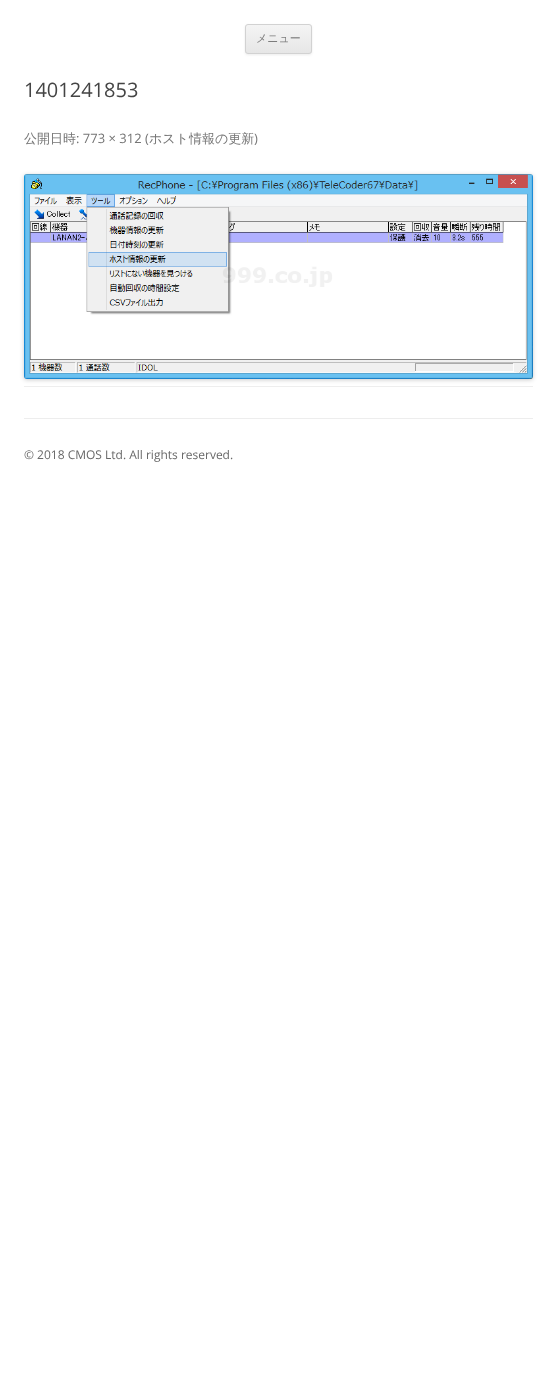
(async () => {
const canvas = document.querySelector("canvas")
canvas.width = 557
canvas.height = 1380
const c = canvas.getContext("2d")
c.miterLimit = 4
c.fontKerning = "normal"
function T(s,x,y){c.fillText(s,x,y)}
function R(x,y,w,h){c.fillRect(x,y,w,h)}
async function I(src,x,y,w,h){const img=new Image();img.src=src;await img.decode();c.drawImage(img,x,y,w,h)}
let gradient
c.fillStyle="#fff"
R(0,0,557,1380)
c.fillStyle="#4040401a"
c.filter="blur(1px)"
c.beginPath()
c.roundRect(245,25,67,30,3)
c.fill()
c.filter="none"
c.save()
c.beginPath()
c.roundRect(245,24,67,30,3)
c.clip()
gradient = c.createLinearGradient(279,25,279,53)
gradient.addColorStop(0,"#f4f4f4")
gradient.addColorStop(1,"#e6e6e6")
c.fillStyle = gradient
R(245,25,67,28)
c.restore()
c.beginPath()
c.roundRect(245.5,24.5,66,29,2.5)
c.strokeStyle="#d2d2d2"
c.stroke()
c.font="500 11px WenQuanYi Zen Hei"
c.fillStyle="#7c7c7c"
T("メニュー",256,42)
c.fillStyle="#eee"
R(24,386,509,1)
c.font="20px Open Sans"
c.fillStyle="#444"
T("1401241853",24,97)
c.font="500 13px WenQuanYi Zen Hei"
c.fillStyle="#757575"
T("公開日時",24,143)
c.font="13px Open Sans"
T(": 773 × 312 (",76,143)
c.font="500 13px WenQuanYi Zen Hei"
T("ホスト情報の更新",149,143)
c.font="13px Open Sans"
T(")",254,143)
c.fillStyle="#00000033"
c.filter="blur(2px)"
c.beginPath()
c.roundRect(24,175,509,205,3)
c.fill()
c.filter="none"
await I("1.png",24,174,509,205)
c.fillStyle="#ededed"
R(24,418,509,1)
c.font="12px Open Sans"
c.fillStyle="#686868"
T("© 2018 CMOS Ltd. All rights reserved.",24,459)
})()
